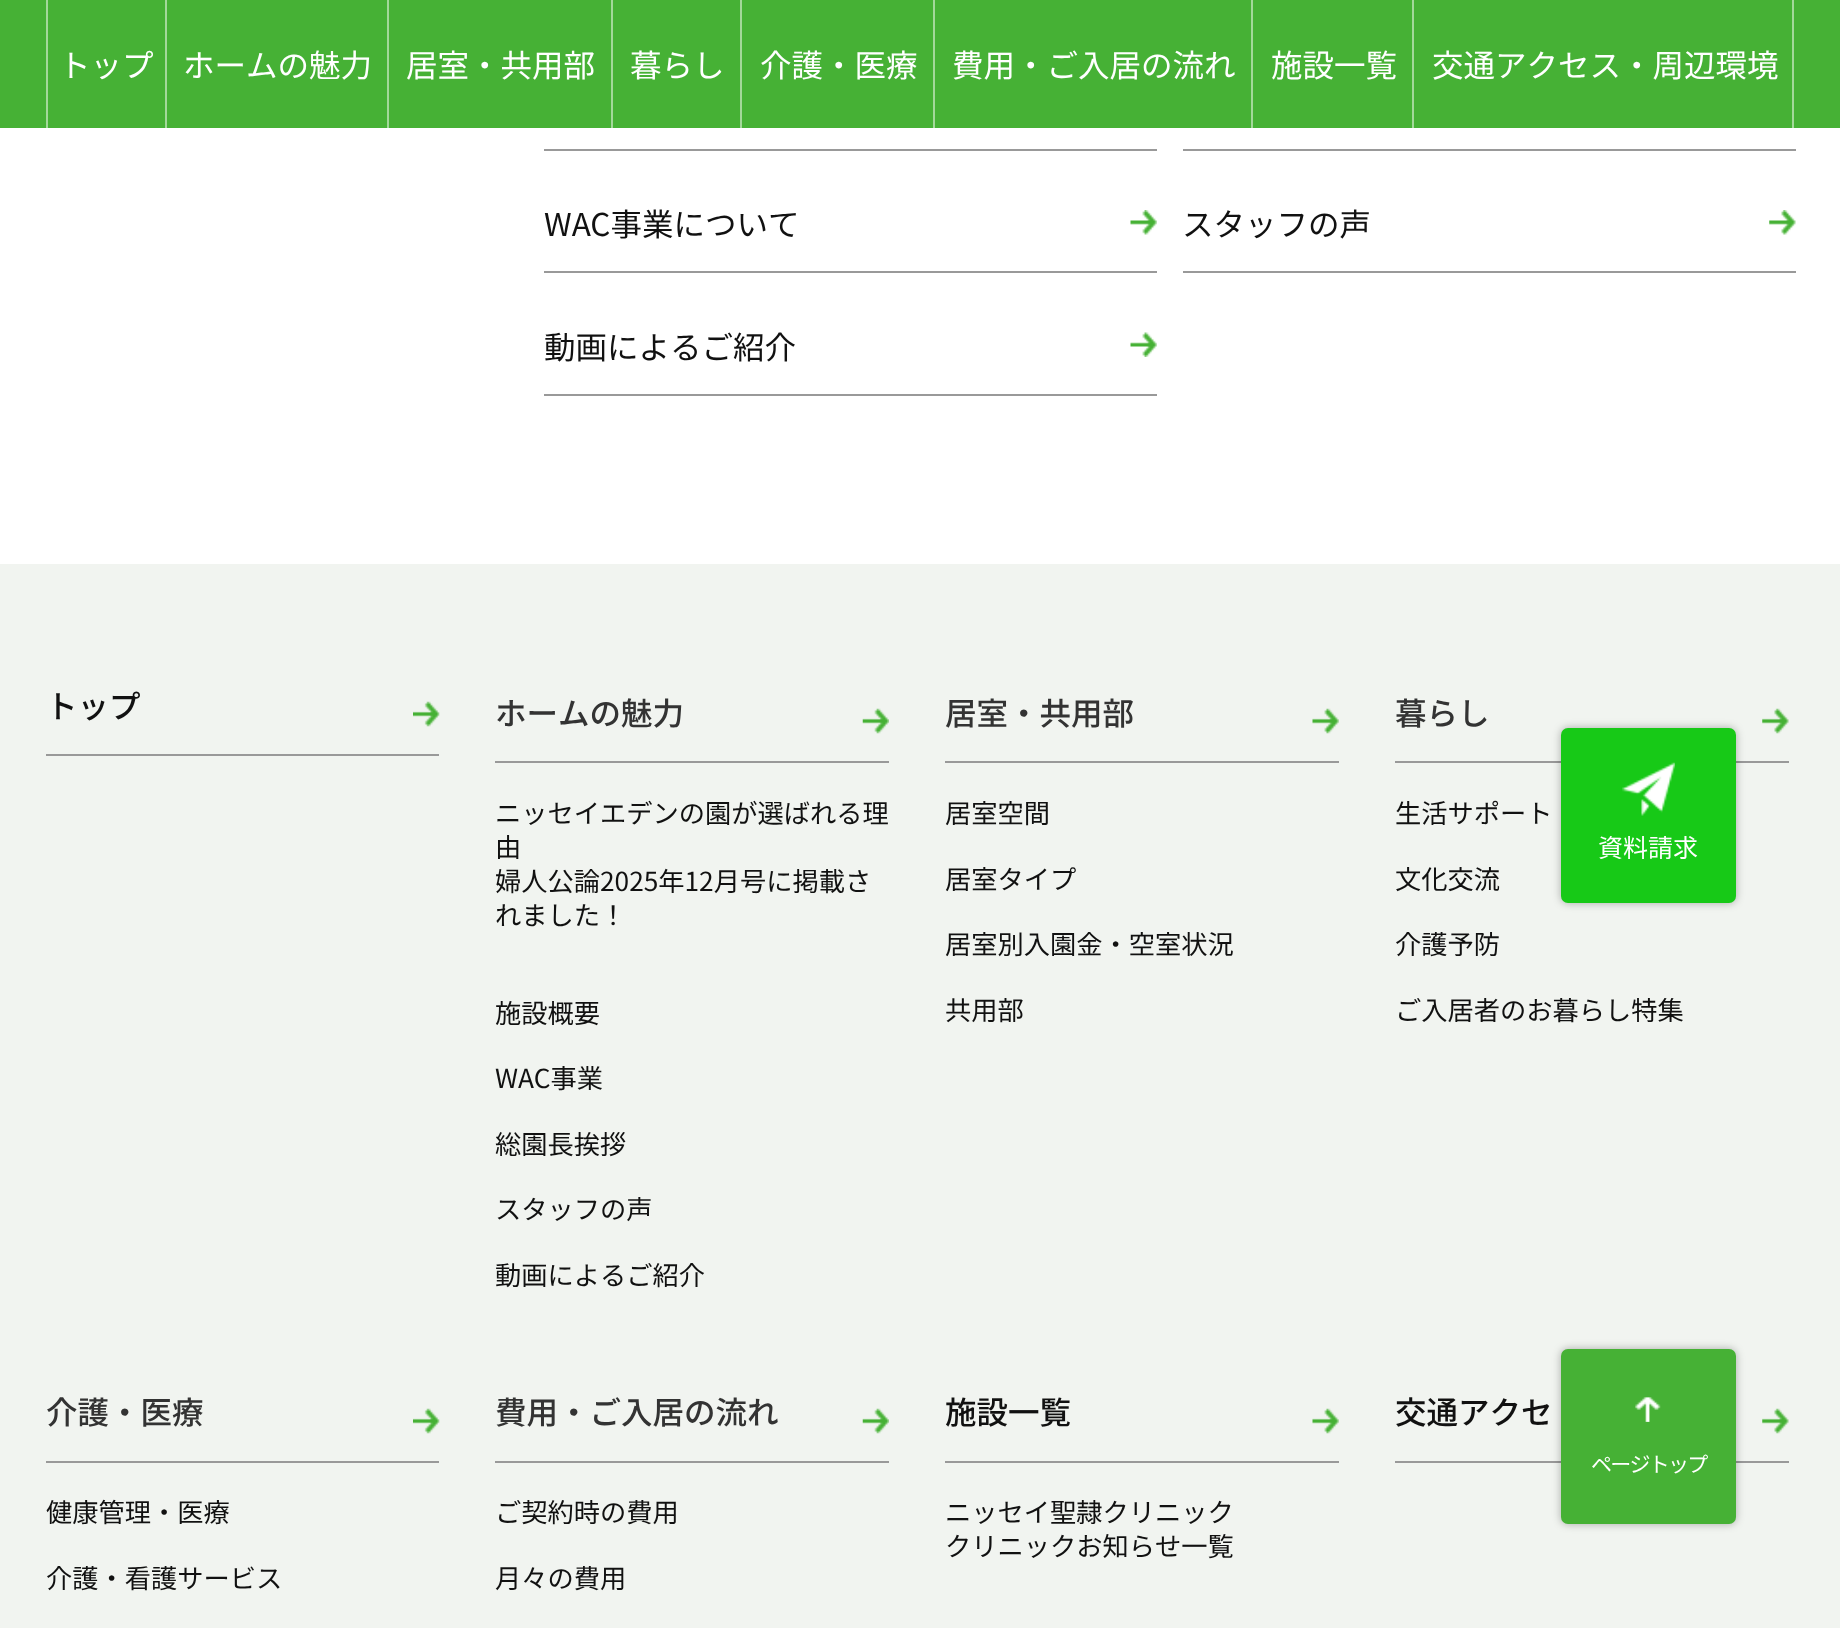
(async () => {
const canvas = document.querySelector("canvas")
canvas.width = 1840
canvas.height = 1628
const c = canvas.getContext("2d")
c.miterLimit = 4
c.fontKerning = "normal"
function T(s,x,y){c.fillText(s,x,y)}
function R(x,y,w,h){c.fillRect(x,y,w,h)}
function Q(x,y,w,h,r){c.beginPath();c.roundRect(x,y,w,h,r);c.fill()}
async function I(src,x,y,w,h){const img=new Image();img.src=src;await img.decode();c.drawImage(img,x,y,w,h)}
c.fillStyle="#fff"
R(0,0,1840,1628)
c.fillStyle="#46b135"
R(0,0,1840,128)
c.fillStyle="#a3d89a"
R(165,0,2,128)
R(46,0,2,128)
c.font="31.5px Noto Sans JP"
c.fillStyle="#fff"
T("トップ",59,77)
c.fillStyle="#a3d89a"
R(387,0,2,128)
c.fillStyle="#fff"
T("ホームの魅力",183,77)
c.fillStyle="#a3d89a"
R(611,0,2,128)
c.fillStyle="#fff"
T("居室・共用部",406,77)
c.fillStyle="#a3d89a"
R(740,0,2,128)
c.fillStyle="#fff"
T("暮らし",630,77)
c.fillStyle="#a3d89a"
R(933,0,2,128)
c.fillStyle="#fff"
T("介護・医療",760,77)
c.fillStyle="#a3d89a"
R(1251,0,2,128)
c.fillStyle="#fff"
T("費用・ご入居の流れ",952,77)
c.fillStyle="#a3d89a"
R(1412,0,2,128)
c.fillStyle="#fff"
T("施設一覧",1271,77)
c.fillStyle="#a3d89a"
R(1792,0,2,128)
c.fillStyle="#fff"
T("交通アクセス・周辺環境",1432,77)
c.fillStyle="#999"
R(544,149,613,2)
R(1183,149,613,2)
R(544,271,613,2)
c.fillStyle="#111"
T("WAC事業について",544,236)
await I("1.png",1130,210,27,25)
c.fillStyle="#999"
R(1183,271,613,2)
c.fillStyle="#111"
T("スタッフの声",1182,236)
await I("2.png",1769,210,27,25)
c.fillStyle="#999"
R(544,394,613,2)
c.fillStyle="#111"
T("動画によるご紹介",544,359)
await I("3.png",1130,332,27,25)
c.fillStyle="#f1f4f0"
R(0,564,1840,1064)
c.fillStyle="#999"
R(1395,761,394,2)
c.fillStyle="#0000004d"
c.filter="blur(4.5px)"
c.beginPath()
c.roundRect(1561,728,175,175,7)
c.fill()
c.filter="none"
c.fillStyle="#17c917"
Q(1561,728,175,175,7)
await I("4.png",1622,762,53,54)
c.font="25px Noto Sans JP"
c.fillStyle="#fff"
T("資料請求",1598,857)
c.fillStyle="#999"
R(46,754,393,2)
c.font="500 31.5px Noto Sans JP"
c.fillStyle="#111"
T("トップ",46,718)
await I("5.png",413,701,27,26)
c.fillStyle="#999"
R(495,761,394,2)
c.fillStyle="#333"
T("ホームの魅力",495,725)
await I("6.png",862,708,27,26)
c.font="26.25px Noto Sans JP"
c.fillStyle="#111"
T("ニッセイエデンの園が選ばれる理",495,823)
T("由",495,857)
T("婦人公論2025年12月号に掲載さ",495,891)
T("れました！",495,925)
T("施設概要",495,1023)
T("WAC事業",495,1088)
T("総園長挨拶",495,1154)
T("スタッフの声",495,1219)
T("動画によるご紹介",495,1285)
c.fillStyle="#999"
R(945,761,394,2)
c.font="500 31.5px Noto Sans JP"
c.fillStyle="#333"
T("居室・共用部",945,725)
await I("7.png",1312,708,27,26)
c.font="26.25px Noto Sans JP"
c.fillStyle="#111"
T("居室空間",945,823)
T("居室タイプ",945,889)
T("居室別入園金・空室状況",945,954)
T("共用部",945,1020)
c.font="500 31.5px Noto Sans JP"
c.fillStyle="#333"
T("暮らし",1395,725)
await I("8.png",1762,708,27,26)
c.font="26.25px Noto Sans JP"
c.fillStyle="#111"
T("生活サポート",1395,823)
T("文化交流",1395,889)
T("介護予防",1395,954)
T("ご入居者のお暮らし特集",1395,1020)
c.fillStyle="#999"
R(46,1461,393,2)
c.font="500 31.5px Noto Sans JP"
c.fillStyle="#333"
T("介護・医療",46,1424)
await I("5.png",413,1408,27,26)
c.font="26.25px Noto Sans JP"
c.fillStyle="#111"
T("健康管理・医療",46,1522)
T("介護・看護サービス",46,1588)
c.fillStyle="#999"
R(495,1461,394,2)
c.font="500 31.5px Noto Sans JP"
c.fillStyle="#333"
T("費用・ご入居の流れ",495,1424)
await I("6.png",862,1408,27,26)
c.font="26.25px Noto Sans JP"
c.fillStyle="#111"
T("ご契約時の費用",495,1522)
T("月々の費用",495,1588)
c.fillStyle="#999"
R(945,1461,394,2)
c.font="500 31.5px Noto Sans JP"
c.fillStyle="#111"
T("施設一覧",945,1424)
await I("7.png",1312,1408,27,26)
c.font="26.25px Noto Sans JP"
T("ニッセイ聖隷クリニック",945,1522)
T("クリニックお知らせ一覧",945,1556)
c.fillStyle="#999"
R(1395,1461,394,2)
c.font="500 31.5px Noto Sans JP"
c.fillStyle="#111"
T("交通アクセ",1395,1424)
await I("8.png",1762,1408,27,26)
c.fillStyle="#0000004d"
c.filter="blur(4.5px)"
c.beginPath()
c.roundRect(1561,1349,175,175,7)
c.fill()
c.filter="none"
c.fillStyle="#46b135"
Q(1561,1349,175,175,7)
await I("9.png",1635,1397,26,25)
c.letterSpacing="-1.75px"
c.font="21px Noto Sans JP"
c.fillStyle="#fff"
T("ページトップ",1591,1472)
})()
